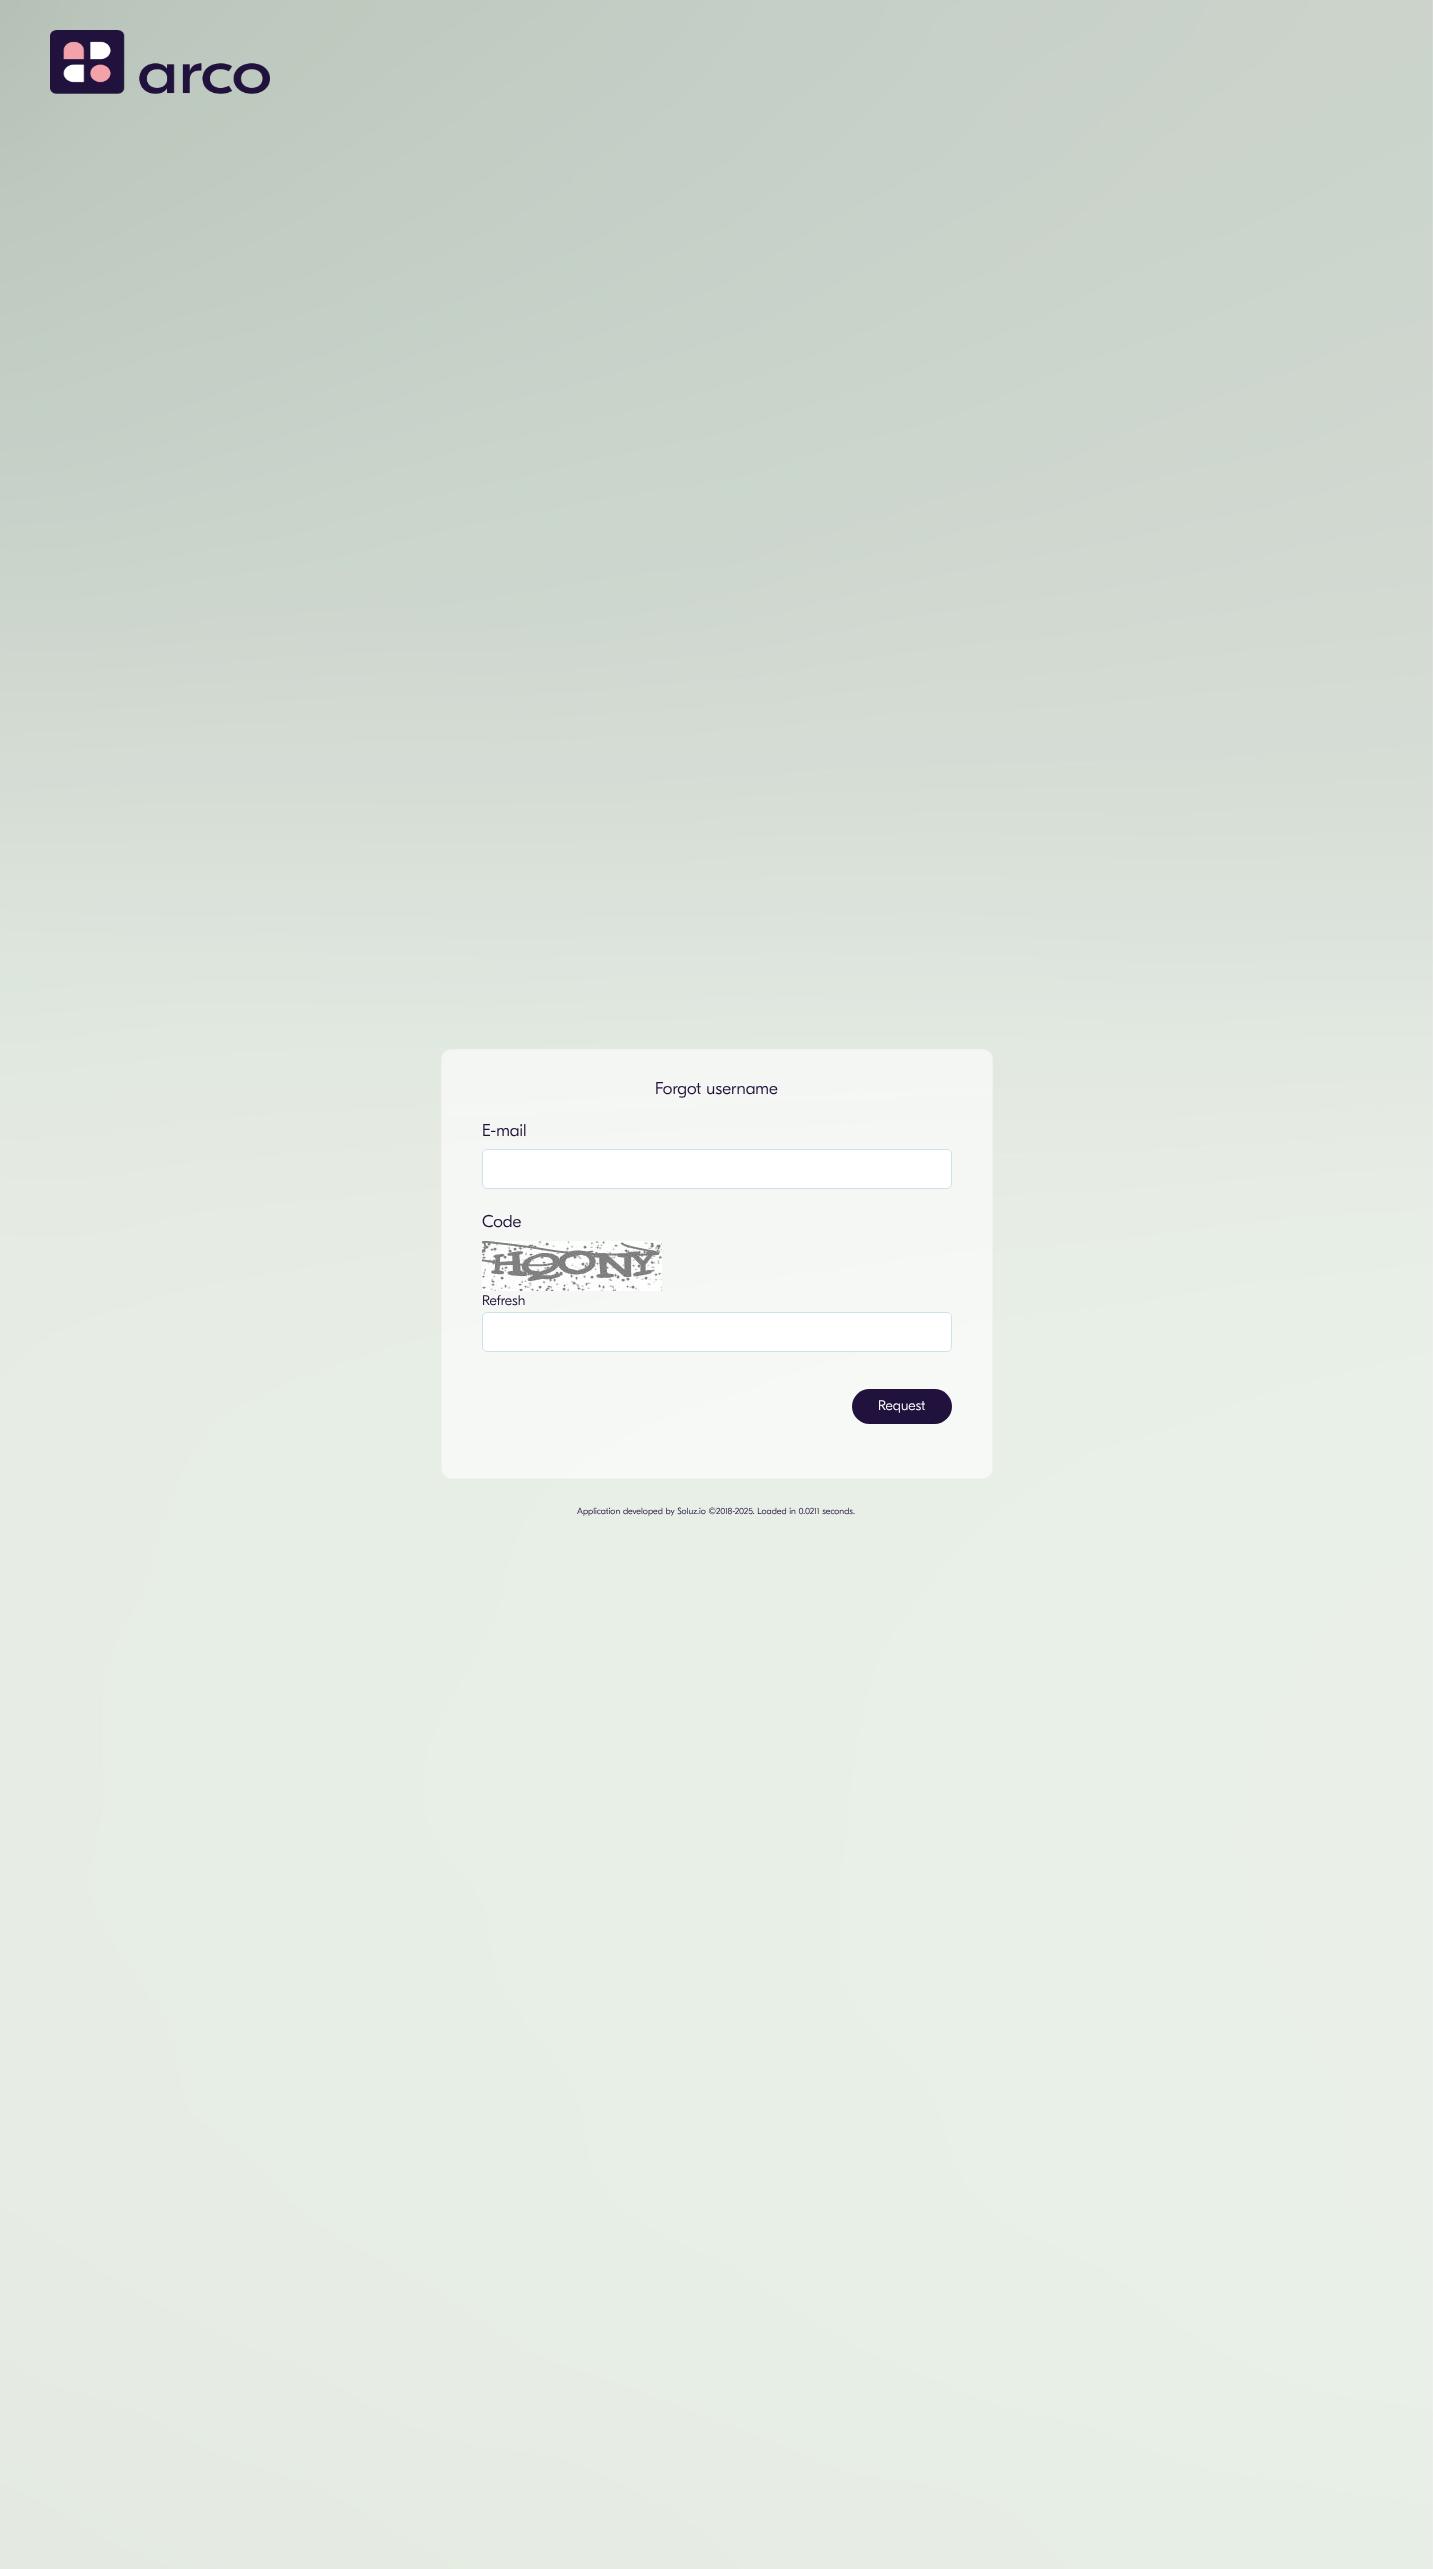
(async () => {
const canvas = document.querySelector("canvas")
canvas.width = 1433
canvas.height = 2569
const c = canvas.getContext("2d")
c.miterLimit = 4
c.fontKerning = "normal"
function T(s,x,y){c.fillText(s,x,y)}
function R(x,y,w,h){c.fillRect(x,y,w,h)}
function Q(x,y,w,h,r){c.beginPath();c.roundRect(x,y,w,h,r);c.fill()}
async function I(src,x,y,w,h){const img=new Image();img.src=src;await img.decode();c.drawImage(img,x,y,w,h)}
c.fillStyle="#fff"
R(0,0,1433,2569)
await I("1.png",0,0,1433,2569)
await I("2.png",50,30,220,64)
c.fillStyle="#ffffff99"
c.beginPath()
c.roundRect(441.5,1049.5,551,429,9.5)
c.fill()
c.strokeStyle="#f4f1ed"
c.stroke()
c.font="300 17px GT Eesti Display"
c.fillStyle="#21123d"
T("Forgot username",655,1094)
T("E-mail",482,1136)
c.fillStyle="#fff"
Q(482,1149,470,40,5)
c.beginPath()
c.roundRect(482.5,1149.5,469,39,4.5)
c.strokeStyle="#006f8b33"
c.stroke()
c.fillStyle="#21123d"
T("Code",482,1227)
await I("3.png",482,1241,180,50)
c.font="300 14px GT Eesti Display"
T("Refresh",482,1305)
c.fillStyle="#fff"
Q(482,1312,470,40,5)
c.beginPath()
c.roundRect(482.5,1312.5,469,39,4.5)
c.stroke()
c.fillStyle="#21123d"
Q(852,1389,100,35,17.5)
c.fillStyle="#fff"
T("Request",878,1410)
c.font="300 8.95px GT Eesti Display"
c.fillStyle="#21123d"
T("Application developed by Soluz.io ©2018-2025. Loaded in 0.0211 seconds.",577,1514)
})()
